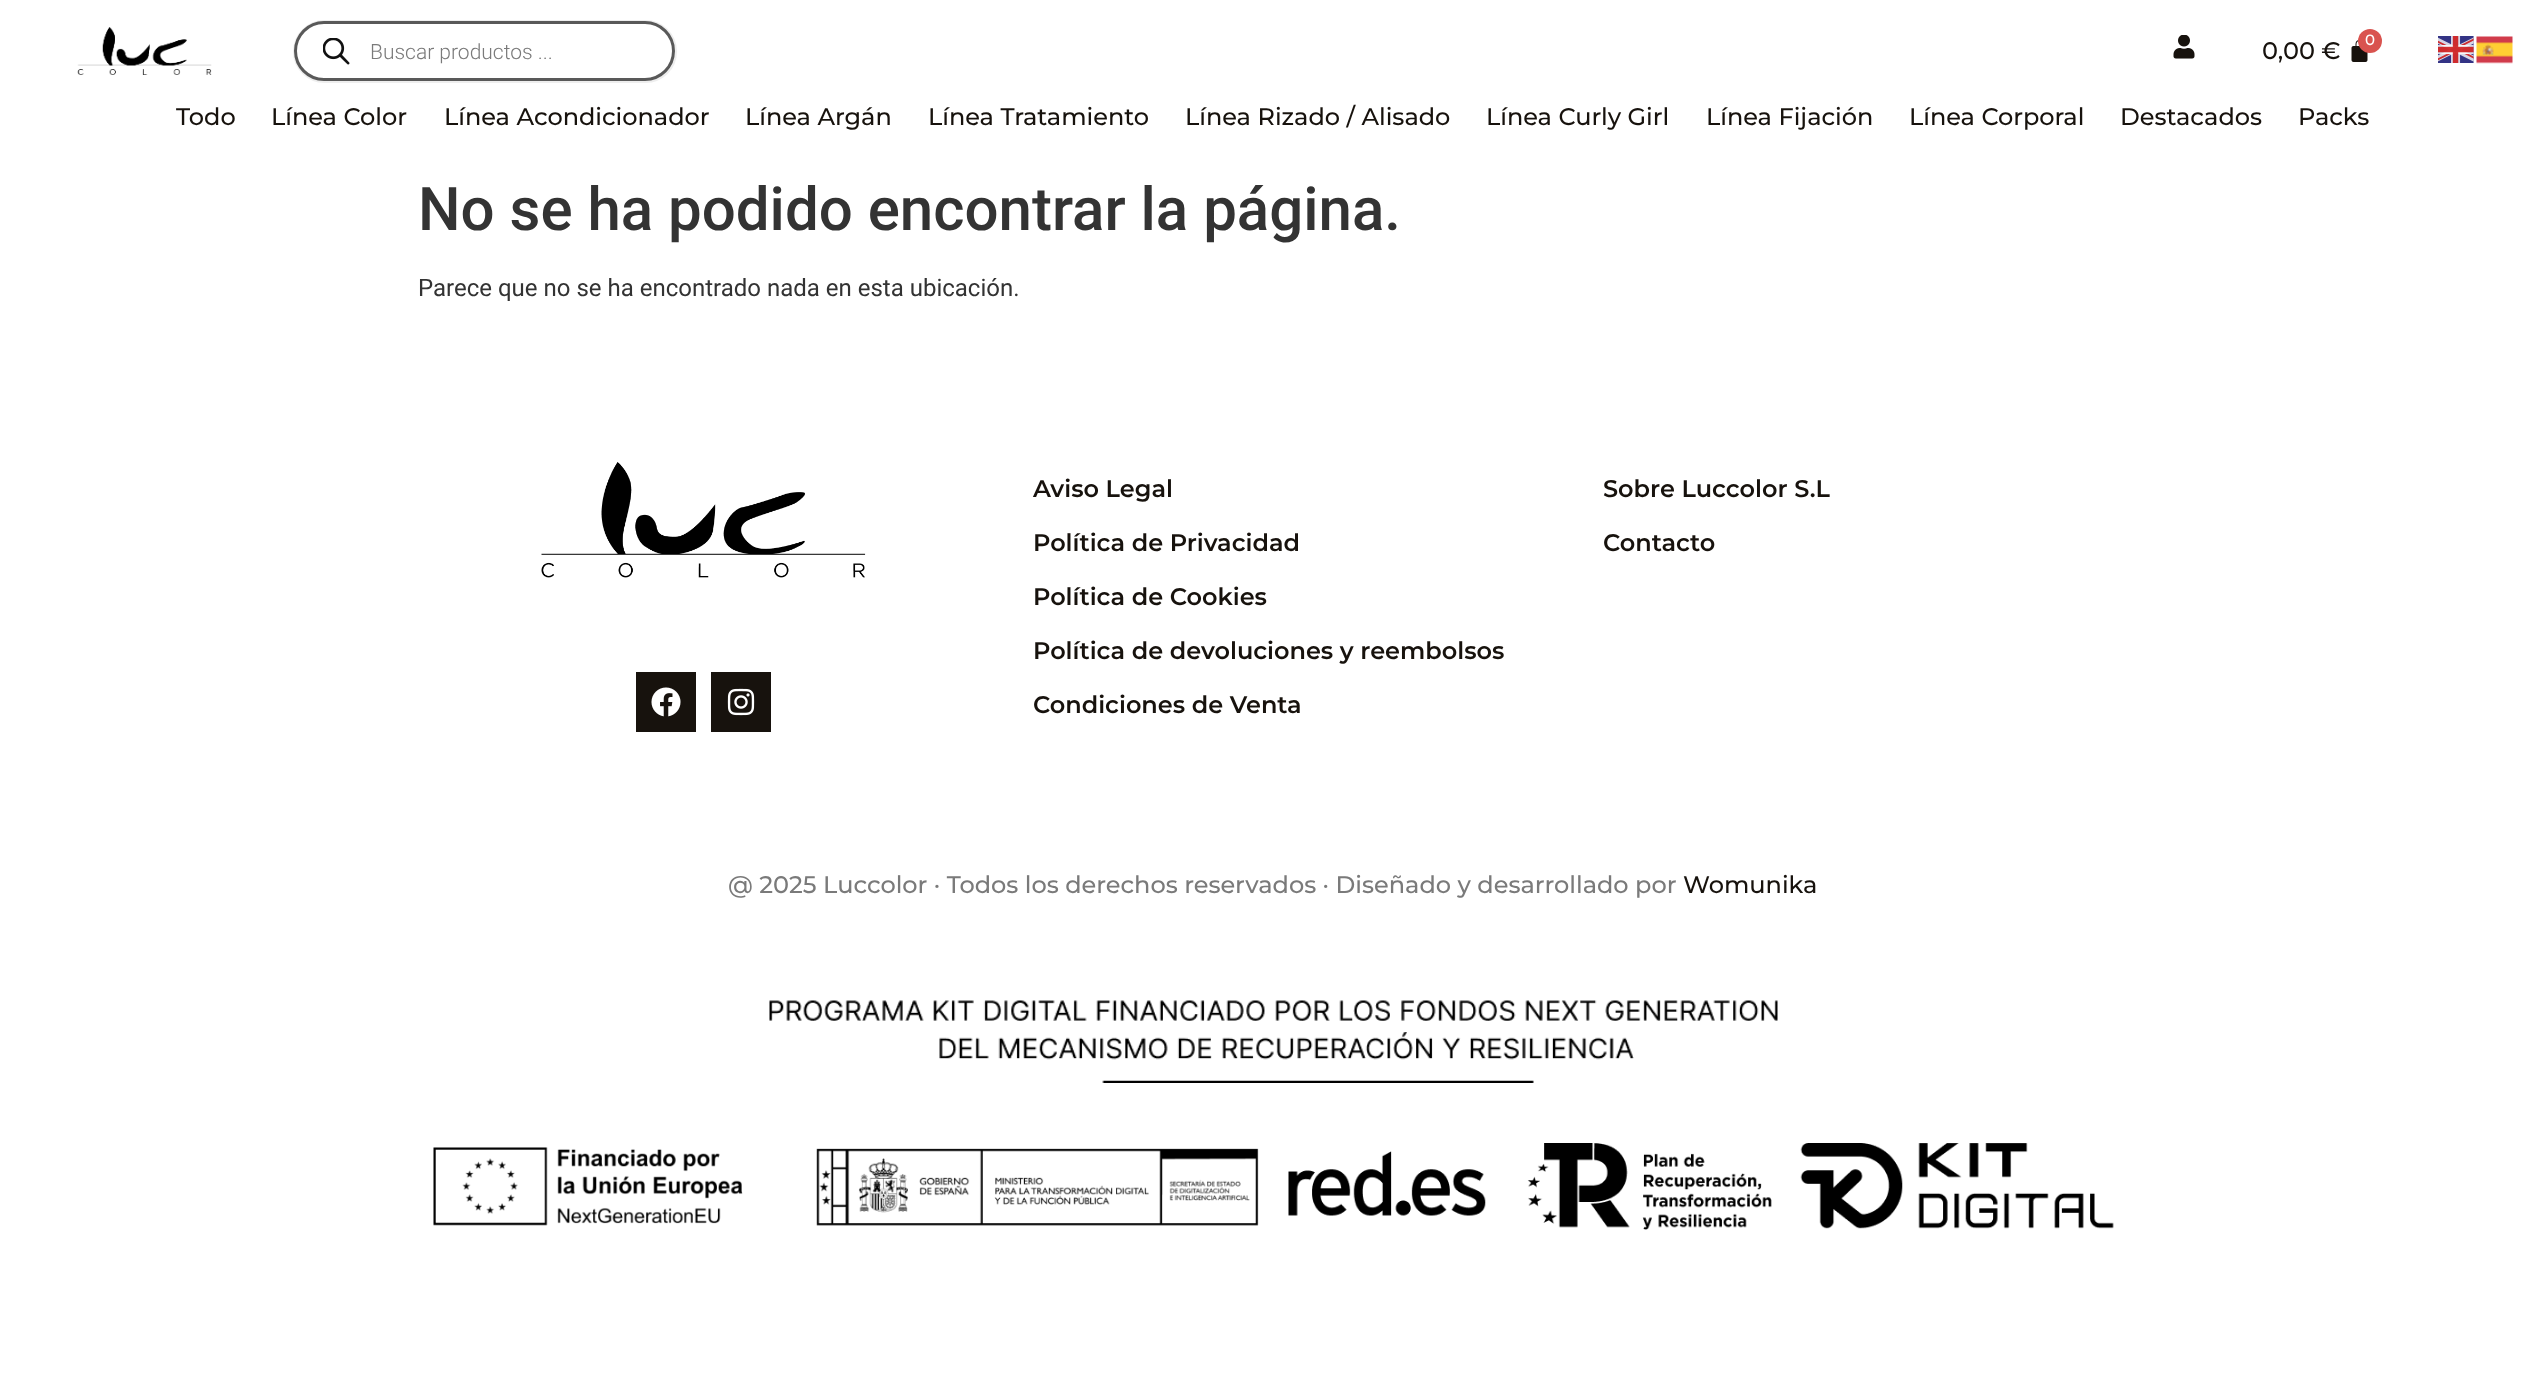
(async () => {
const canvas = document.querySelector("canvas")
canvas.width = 2545
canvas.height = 1384
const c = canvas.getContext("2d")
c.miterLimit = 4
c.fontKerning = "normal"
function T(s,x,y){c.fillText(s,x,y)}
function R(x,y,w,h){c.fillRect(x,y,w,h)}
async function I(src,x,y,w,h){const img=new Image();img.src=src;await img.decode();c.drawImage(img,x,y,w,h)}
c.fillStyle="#fff"
R(0,0,2545,1384)
await I("1.png",77,27,135,48)
c.beginPath()
c.roundRect(294,21,382,61,30.5)
c.strokeStyle="#eee"
c.lineWidth=2
c.stroke()
c.beginPath()
c.roundRect(295.5,22.5,378,57,28.5)
c.strokeStyle="#595959"
c.lineWidth=3
c.stroke()
await I("2.png",323,38,27,27)
c.font="300 21px Roboto"
c.fillStyle="#7a7a7a"
T("Buscar productos ...",370,59)
await I("3.png",2173,35,22,24)
await I("4.png",2351,40,17,22)
c.fillStyle="#d9534f"
c.beginPath()
c.arc(2370,41,12,0,7)
c.fill()
c.font="500 15px Montserrat"
c.fillStyle="#fff"
T("0",2365,45)
c.font="500 24px Montserrat"
c.fillStyle="#17120d"
T("0,00 €",2262,59)
await I("5.png",2438,36,36,27)
await I("6.png",2476,36,37,28)
T("Todo",176,125)
T("Línea Color",271,125)
T("Línea Acondicionador",444,125)
T("Línea Argán",745,125)
T("Línea Tratamiento",928,125)
T("Línea Rizado / Alisado",1185,125)
T("Línea Curly Girl",1486,125)
T("Línea Fijación",1706,125)
T("Línea Corporal",1909,125)
T("Destacados",2120,125)
T("Packs",2298,125)
c.font="500 60px Roboto"
c.fillStyle="#333"
T("No se ha podido encontrar la página.",418,230)
c.font="24px Roboto"
T("Parece que no se ha encontrado nada en esta ubicación.",418,296)
await I("7.png",541,462,325,116)
c.fillStyle="#17120d"
R(636,672,60,60)
await I("8.png",651,687,30,30)
R(711,672,60,60)
await I("9.png",727,688,28,28)
c.font="600 24px Montserrat"
T("Aviso Legal",1033,497)
T("Política de Privacidad",1033,551)
T("Política de Cookies",1033,605)
T("Política de devoluciones y reembolsos",1033,659)
T("Condiciones de Venta",1033,713)
T("Sobre Luccolor S.L",1603,497)
T("Contacto",1603,551)
c.font="500 24px Montserrat"
c.fillStyle="#7a7a7a"
T("@ 2025 Luccolor · Todos los derechos reservados · Diseñado y desarrollado por",728,893)
c.fillStyle="#17120d"
T("Womunika",1683,893)
await I("10.png",769,1000,1009,83)
await I("11.png",433,1147,826,79)
await I("12.png",1288,1143,826,87)
})()
